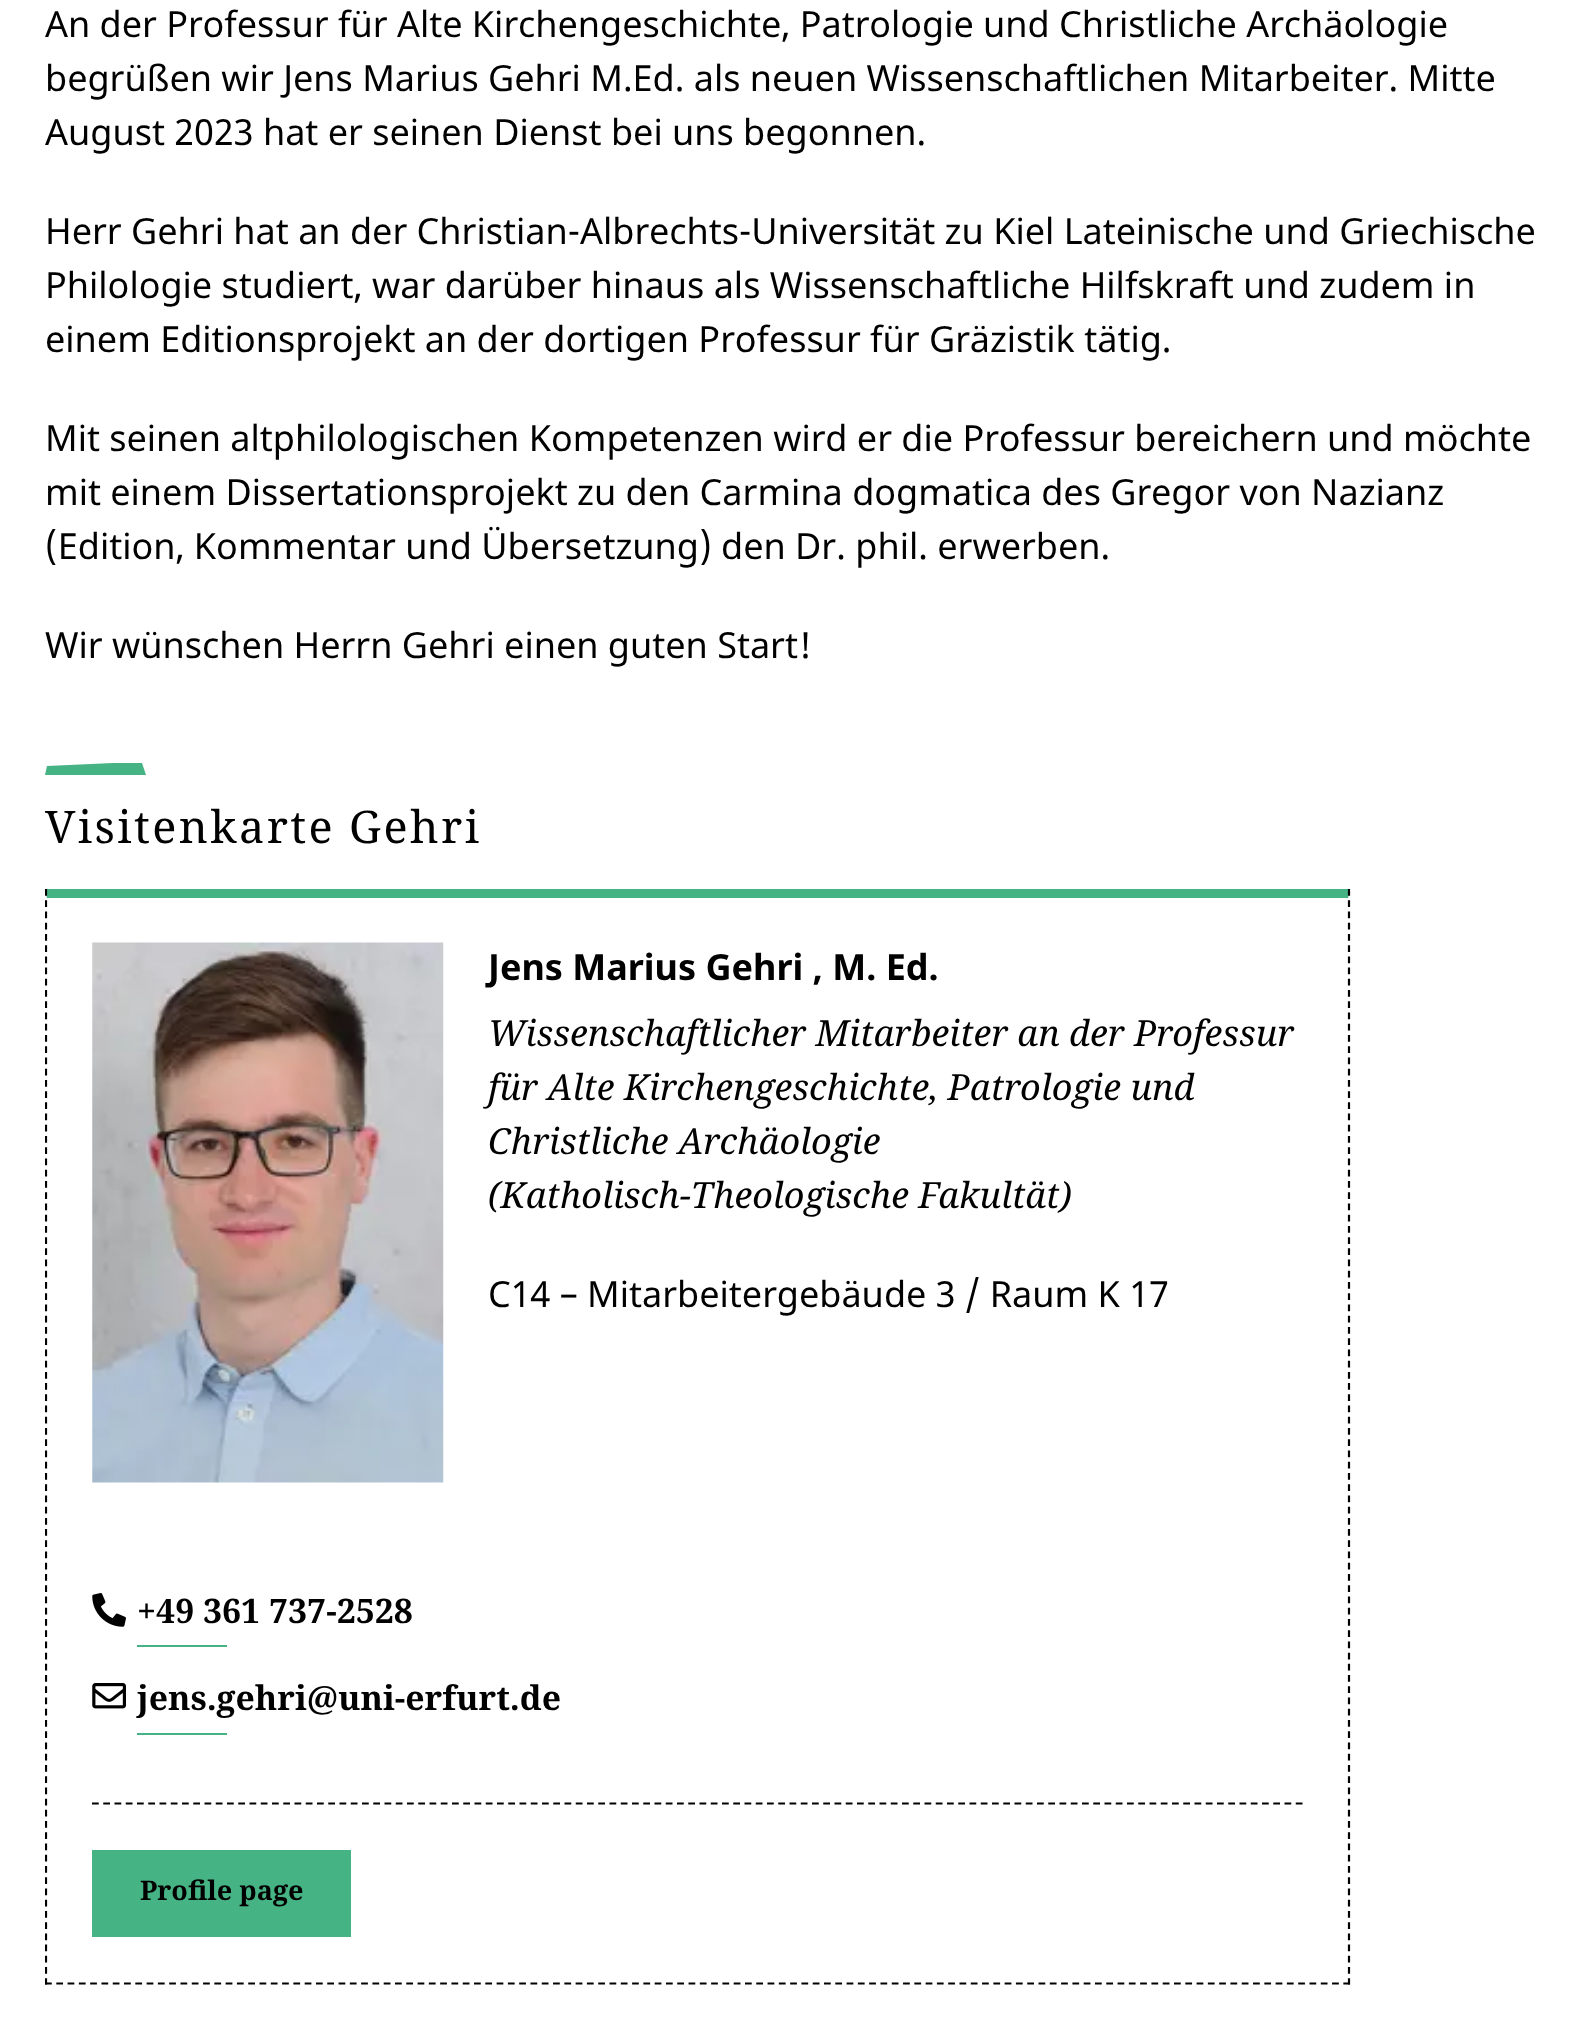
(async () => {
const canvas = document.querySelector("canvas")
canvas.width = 1584
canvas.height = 2042
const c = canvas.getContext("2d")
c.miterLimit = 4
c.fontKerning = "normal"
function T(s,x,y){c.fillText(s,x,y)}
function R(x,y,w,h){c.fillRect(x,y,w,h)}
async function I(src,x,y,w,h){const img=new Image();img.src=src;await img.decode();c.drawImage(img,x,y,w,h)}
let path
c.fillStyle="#fff"
R(0,0,1584,2042)
c.font="36px Noto Sans"
c.fillStyle="#000"
T("An der Professur für Alte Kirchengeschichte, Patrologie und Christliche Archäologie",45,37)
T("begrüßen wir Jens Marius Gehri M.Ed. als neuen Wissenschaftlichen Mitarbeiter. Mitte",45,91)
T("August 2023 hat er seinen Dienst bei uns begonnen.",45,145)
T("Herr Gehri hat an der Christian-Albrechts-Universität zu Kiel Lateinische und Griechische",45,244)
T("Philologie studiert, war darüber hinaus als Wissenschaftliche Hilfskraft und zudem in",45,298)
T("einem Editionsprojekt an der dortigen Professur für Gräzistik tätig.",45,352)
T("Mit seinen altphilologischen Kompetenzen wird er die Professur bereichern und möchte",45,451)
T("mit einem Dissertationsprojekt zu den Carmina dogmatica des Gregor von Nazianz",45,505)
T("(Edition, Kommentar und Übersetzung) den Dr. phil. erwerben.",45,559)
T("Wir wünschen Herrn Gehri einen guten Start!",45,658)
c.fillStyle="#45b384"
path = new Path2D("M47 766l-2 9h101l-4-12h-29z")
c.fill(path)
c.letterSpacing="2.4px"
c.font="45px Noto Serif"
c.fillStyle="#000"
T("Visitenkarte Gehri",45,843)
c.fillStyle="#45b384"
path = new Path2D("M45 889h1305l-2 9h-1301z")
c.fill(path)
path = new Path2D("M1349 889v1095.5")
c.strokeStyle="#000"
c.lineWidth=2.2
c.setLineDash([6.75,4.48])
c.stroke(path)
path = new Path2D("M45 1983.5h1305")
c.setLineDash([6.75,4.54])
c.stroke(path)
c.save()
c.beginPath()
c.rect(45,0,1494,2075)
c.clip()
path = new Path2D("M46 889v1095.5")
c.setLineDash([6.75,4.48])
c.stroke(path)
c.restore()
await I("1.png",92,942,352,541)
c.letterSpacing="0px"
c.font="bold 36px Noto Sans"
c.fillStyle="#000"
T("Jens Marius Gehri , M. Ed.",488,980)
c.font="italic 36px Noto Serif"
T("Wissenschaftlicher Mitarbeiter an der Professur",488,1046)
T("für Alte Kirchengeschichte, Patrologie und",488,1100)
T("Christliche Archäologie",488,1154)
T("(Katholisch-Theologische Fakultät)",488,1208)
c.font="36px Noto Sans"
T("C14 – Mitarbeitergebäude 3 / Raum K 17",488,1307)
await I("2.png",92,1593,34,34)
c.font="bold 33.75px Noto Serif"
T("+49 361 737-2528",137,1623)
c.fillStyle="#45b384"
R(137,1645,90,2)
await I("3.png",92,1683,34,26)
c.fillStyle="#000"
T("jens.gehri@uni-erfurt.de",137,1710)
c.fillStyle="#45b384"
R(137,1733,90,2)
path = new Path2D("M92 1803.5h1211")
c.setLineDash([6.75,4.5])
c.stroke(path)
R(92,1850,259,87)
c.font="bold 27px Noto Serif"
c.fillStyle="#000"
T("Profile page",140,1900)
})()
